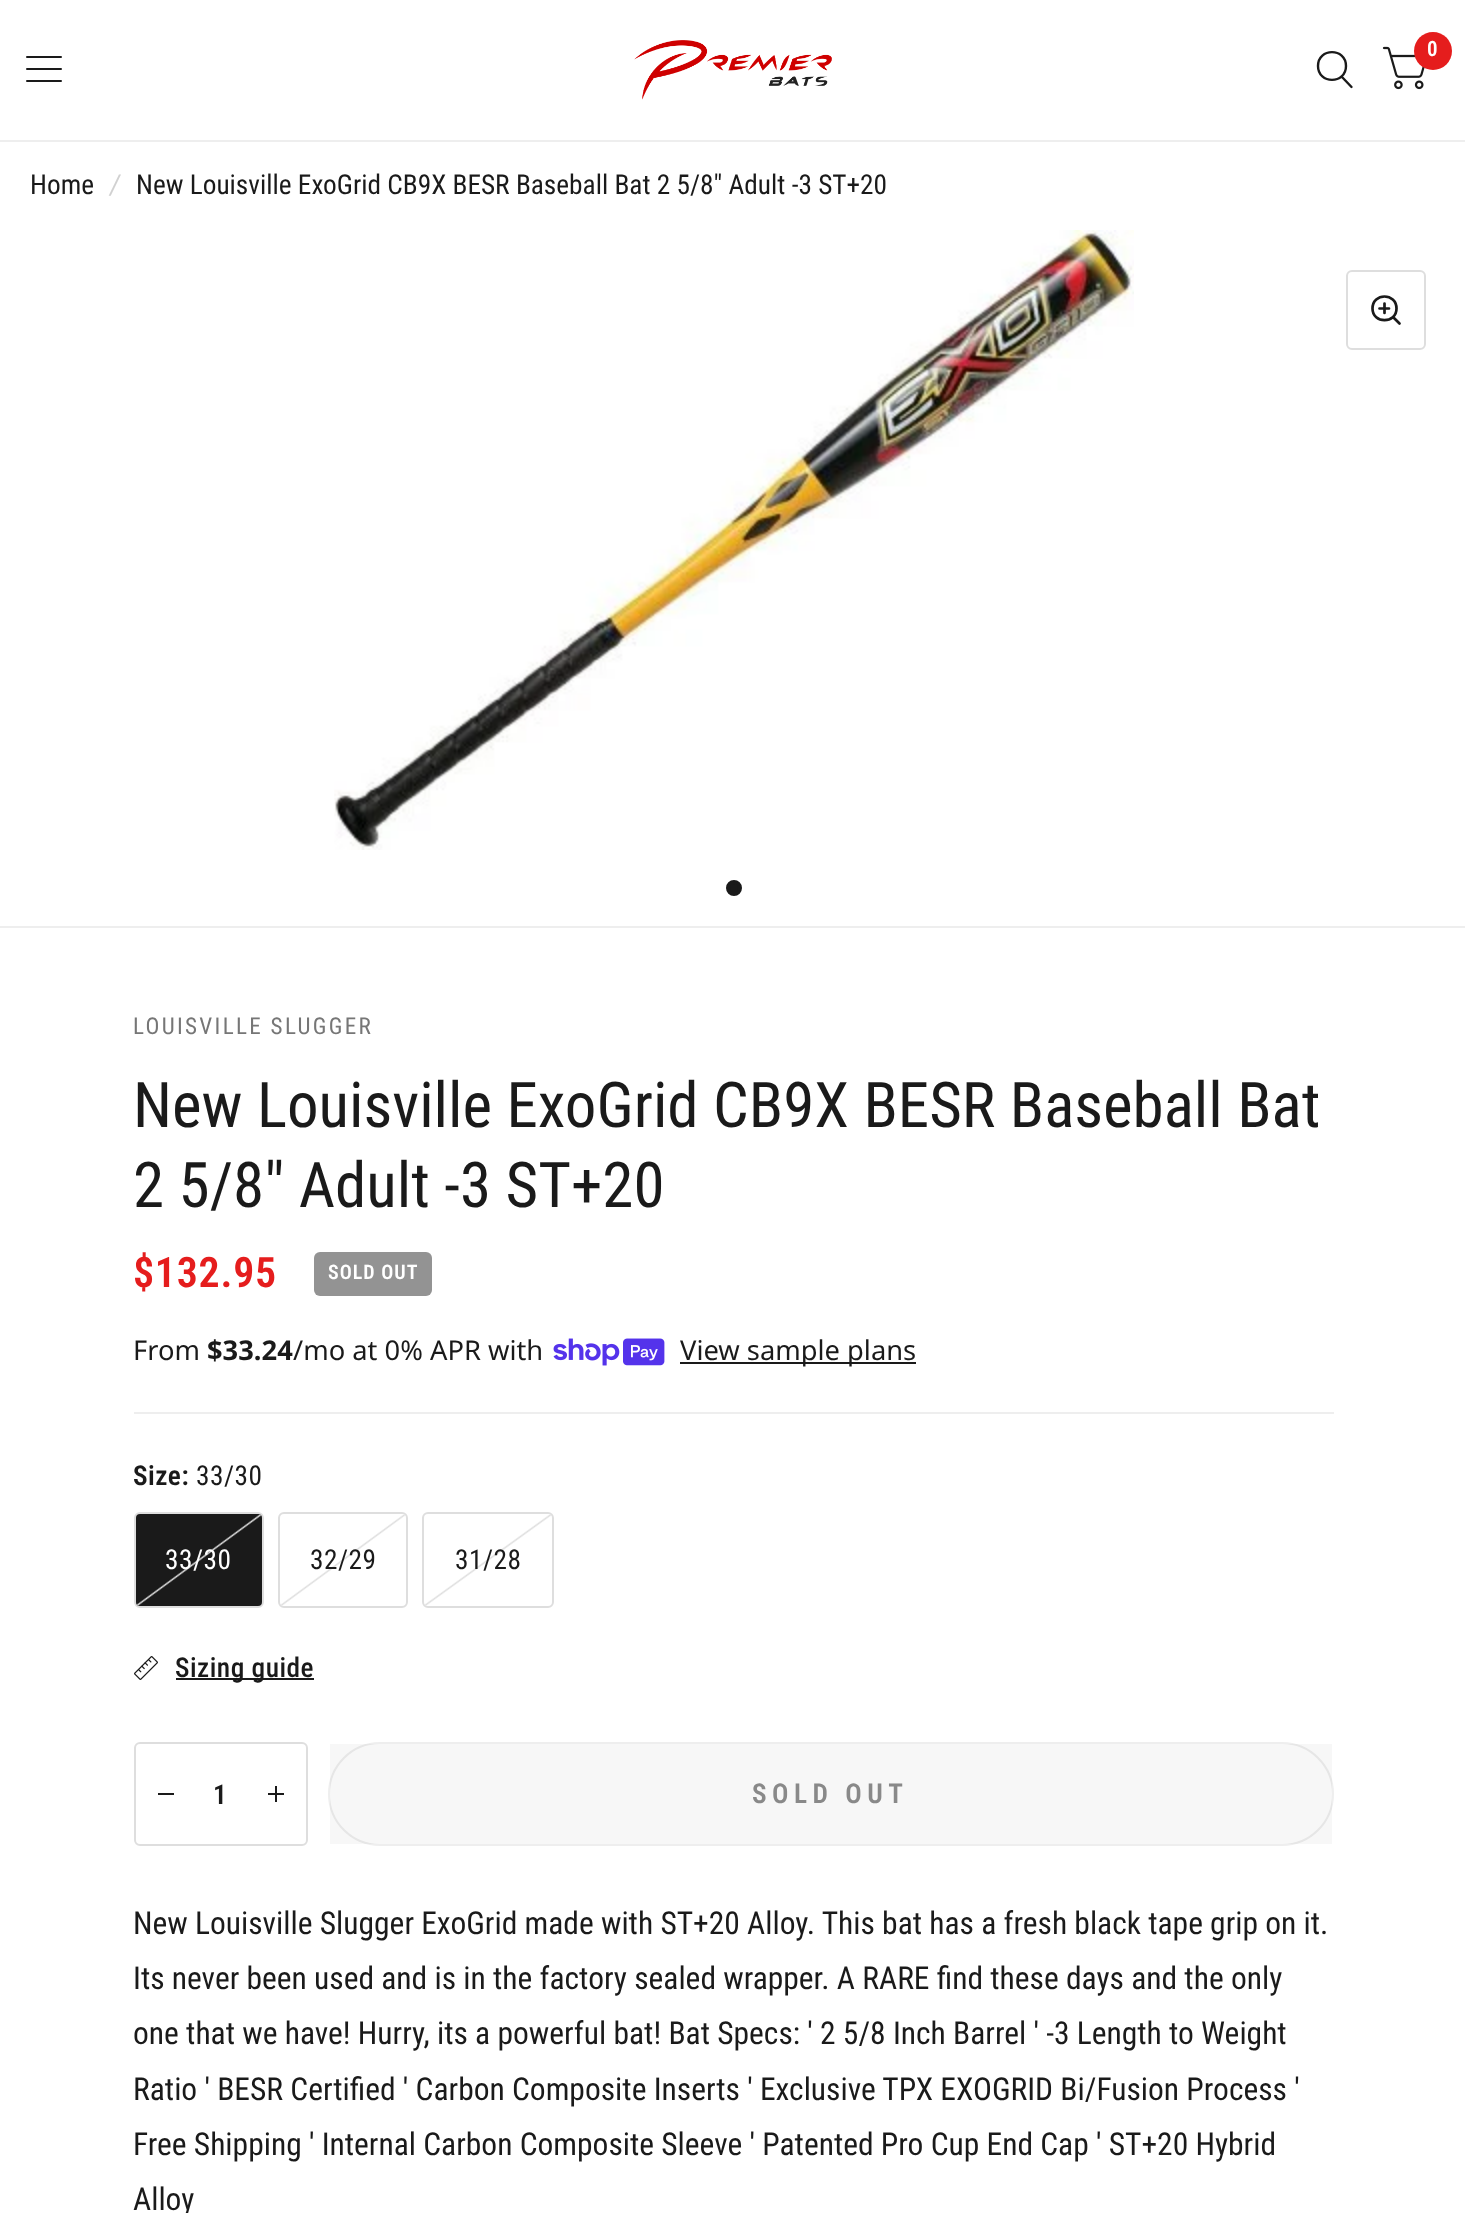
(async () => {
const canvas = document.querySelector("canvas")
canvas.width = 1465
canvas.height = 2213
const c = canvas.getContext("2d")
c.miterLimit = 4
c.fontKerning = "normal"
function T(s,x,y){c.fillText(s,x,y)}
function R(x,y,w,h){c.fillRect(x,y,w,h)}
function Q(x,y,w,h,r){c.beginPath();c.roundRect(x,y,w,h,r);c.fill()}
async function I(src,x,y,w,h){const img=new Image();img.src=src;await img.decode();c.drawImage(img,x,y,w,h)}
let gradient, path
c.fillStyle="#fff"
R(0,0,1465,2213)
c.fillStyle="#eee"
R(0,140,1465,2)
await I("1.png",634,40,198,60)
path = new Path2D("M1342 77l9.5 10m-5.5-21c0 18.5-28 18.5-28 0c0-18.5 28-18.5 28 0z")
c.strokeStyle="#1a1a1a"
c.lineWidth=2.4
c.lineCap="round"
c.lineJoin="round"
c.stroke(path)
await I("2.png",1382,46,43,44)
c.fillStyle="#e51d1d"
c.beginPath()
c.arc(1433,51,19,0,7)
c.fill()
c.font="600 21px Roboto Condensed"
c.fillStyle="#fff"
T("0",1427,56)
c.fillStyle="#1a1a1a"
Q(26,56,36,2,1)
Q(26,68,36,2,1)
Q(26,80,36,2,1)
c.font="27.3px Roboto Condensed"
T("Home",30,194)
c.font="italic 27.3px Roboto Condensed"
c.fillStyle="#d1d1d1"
T("/",110,194)
c.font="27.3px Roboto Condensed"
c.fillStyle="#1a1a1a"
T("New Louisville ExoGrid CB9X BESR Baseball Bat 2 5/8\" Adult -3 ST+20",136,194)
await I("3.png",334,230,800,620)
c.beginPath()
c.roundRect(1347,271,78,78,5)
c.strokeStyle="#dedede"
c.lineWidth=2
c.lineJoin="miter"
c.stroke()
path = new Path2D("M1379.5 308.5h9.5m-4.5-5v9.5m8.5 4l6.5 6.5m-3-15c0 15.5-24 15.5-24 0c0-16 24-16 24 0z")
c.strokeStyle="#1a1a1a"
c.lineWidth=2.7
c.lineJoin="round"
c.stroke(path)
c.fillStyle="#eee"
R(0,926,1465,2)
c.fillStyle="#1a1a1a"
c.beginPath()
c.arc(734,888,6,0,7)
c.fill()
c.lineWidth=4
c.stroke()
c.letterSpacing="2.3px"
c.font="23.1px Roboto Condensed"
c.fillStyle="#767676"
T("LOUISVILLE SLUGGER",133,1034)
c.fillStyle="#eee"
R(134,1412,1200,2)
c.letterSpacing="0px"
c.font="63px Roboto Condensed"
c.fillStyle="#1a1a1a"
T("New Louisville ExoGrid CB9X BESR Baseball Bat",133,1127)
T("2 5/8\" Adult -3 ST+20",133,1207)
c.letterSpacing="0.75px"
c.font="600 42px Roboto Condensed"
c.fillStyle="#e51d1d"
T("$132.95",133,1287)
c.fillStyle="#939393"
Q(314,1252,118,44,6)
c.letterSpacing="1px"
c.font="600 20px Roboto Condensed"
c.fillStyle="#fff"
T("SOLD OUT",328,1279)
c.letterSpacing="0px"
c.font="27.3px Noto Sans"
c.fillStyle="#1a1a1a"
T("From",133,1360)
c.font="bold 27.3px Noto Sans"
T("$33.24",207,1360)
c.font="27.3px Noto Sans"
T("/mo at 0% APR with",293,1360)
await I("4.png",553,1338,112,28)
R(680,1362,236,2)
T("View sample plans",680,1360)
c.letterSpacing="0.5px"
c.font="600 27.3px Roboto Condensed"
T("Size:",133,1485)
c.font="27.3px Roboto Condensed"
T("33/30",196,1485)
c.beginPath()
c.roundRect(135,1513,128,94,5)
c.fill()
c.strokeStyle="#dedede"
c.lineWidth=2
c.lineJoin="miter"
c.stroke()
gradient = c.createLinearGradient(155,1500,243,1620)
gradient.addColorStop(.49,"#dedede00")
gradient.addColorStop(.5,"#dedede")
gradient.addColorStop(.51,"#dedede00")
c.fillStyle = gradient
Q(136,1514,126,92,4)
c.fillStyle="#fff"
T("33/30",165,1569)
c.beginPath()
c.roundRect(279,1513,128,94,5)
c.stroke()
gradient = c.createLinearGradient(299,1500,387,1620)
gradient.addColorStop(.49,"#dedede00")
gradient.addColorStop(.5,"#dedede")
gradient.addColorStop(.51,"#dedede00")
c.fillStyle = gradient
Q(280,1514,126,92,4)
c.fillStyle="#1a1a1a"
T("32/29",310,1569)
c.beginPath()
c.roundRect(423,1513,130,94,5)
c.stroke()
gradient = c.createLinearGradient(444,1499,532,1621)
gradient.addColorStop(.49,"#dedede00")
gradient.addColorStop(.5,"#dedede")
gradient.addColorStop(.51,"#dedede00")
c.fillStyle = gradient
Q(424,1514,128,92,4)
c.fillStyle="#1a1a1a"
T("31/28",455,1569)
await I("5.png",134,1656,24,24)
R(176,1678,138,2)
c.font="500 27.3px Roboto Condensed"
T("Sizing guide",175,1677)
c.beginPath()
c.roundRect(135,1743,172,102,5)
c.stroke()
R(158,1793,16,2)
c.letterSpacing="0px"
c.font="600 27.3px Roboto Condensed"
T("1",213,1804)
R(275,1786,2,16)
R(268,1793,16,2)
c.beginPath()
c.roundRect(329,1743,1004,102,51)
c.strokeStyle="#eee"
c.stroke()
c.fillStyle="#00000008"
R(330,1744,1002,100)
c.letterSpacing="5.5px"
c.fillStyle="#898989"
T("SOLD OUT",752,1803)
c.letterSpacing="0px"
c.font="31.5px Roboto Condensed"
c.fillStyle="#1a1a1a"
T("New Louisville Slugger ExoGrid made with ST+20 Alloy. This bat has a fresh black tape grip on it.",133,1934)
T("Its never been used and is in the factory sealed wrapper. A RARE find these days and the only",133,1989)
T("one that we have! Hurry, its a powerful bat! Bat Specs: ' 2 5/8 Inch Barrel ' -3 Length to Weight",133,2044)
T("Ratio ' BESR Certified ' Carbon Composite Inserts ' Exclusive TPX EXOGRID Bi/Fusion Process '",133,2100)
T("Free Shipping ' Internal Carbon Composite Sleeve ' Patented Pro Cup End Cap ' ST+20 Hybrid",133,2155)
T("Alloy",133,2210)
})()
